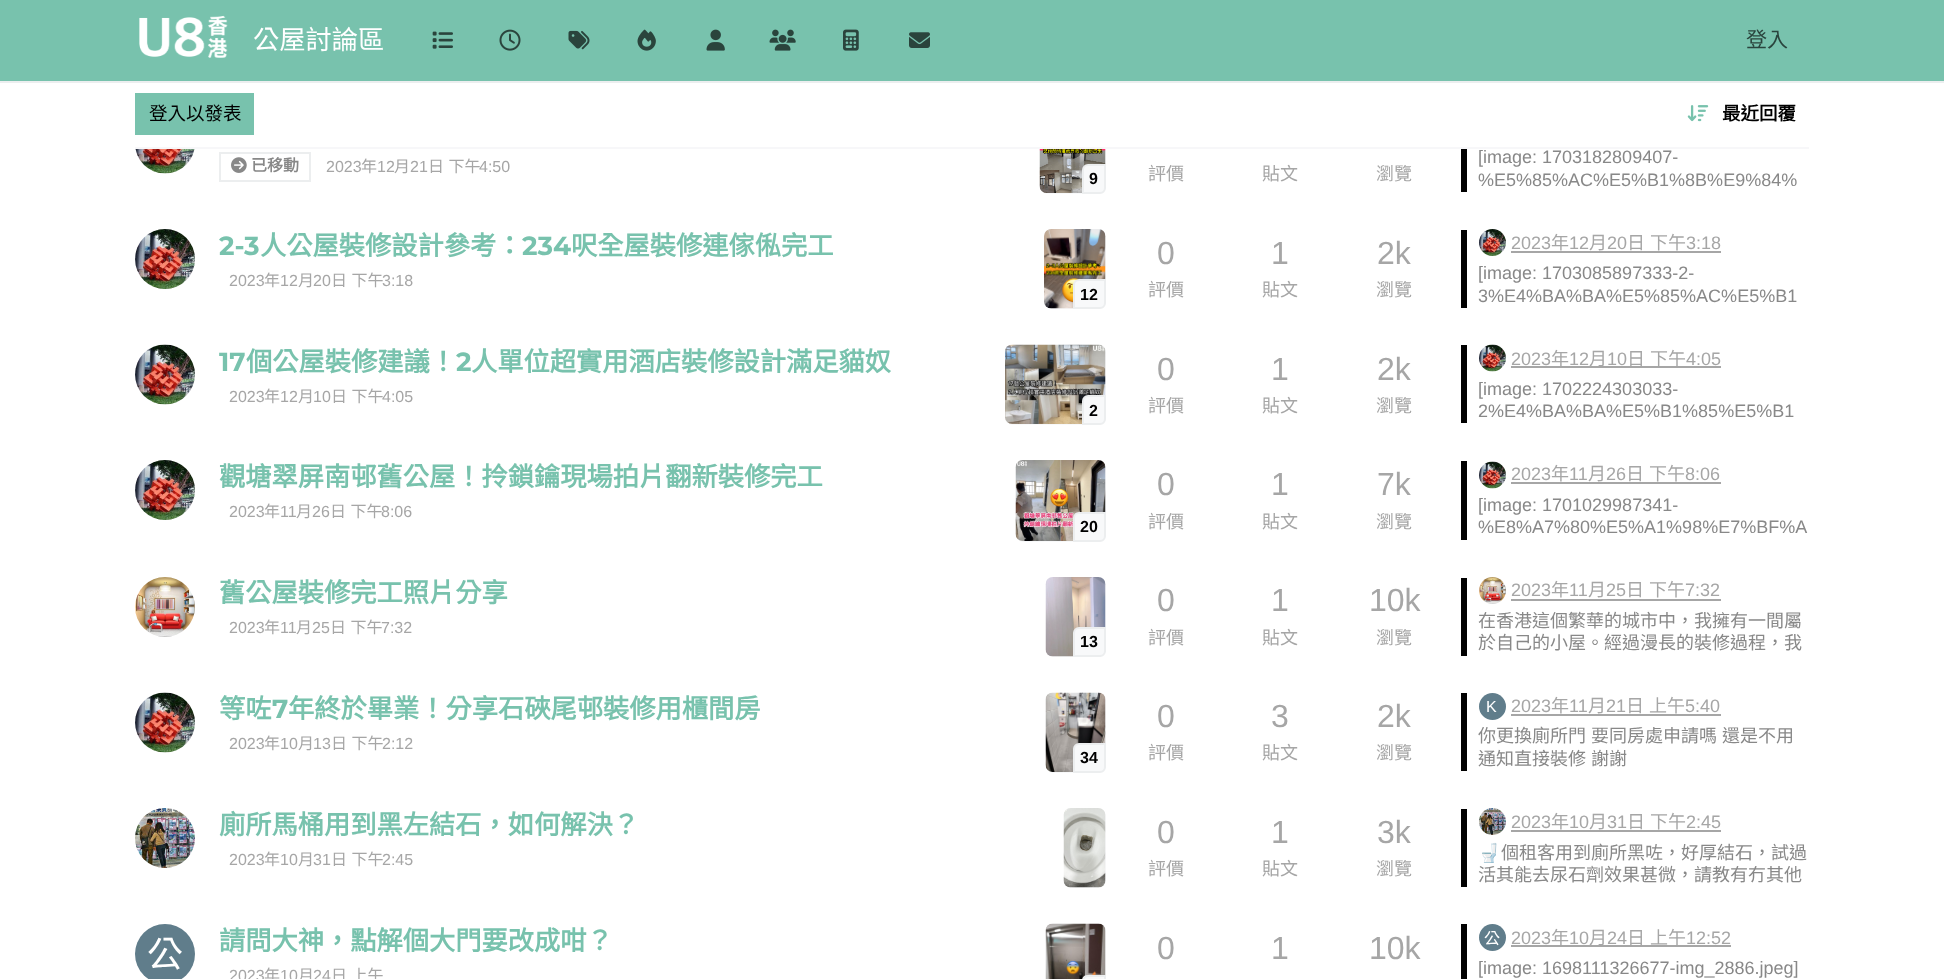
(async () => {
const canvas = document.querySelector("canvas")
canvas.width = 1944
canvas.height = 979
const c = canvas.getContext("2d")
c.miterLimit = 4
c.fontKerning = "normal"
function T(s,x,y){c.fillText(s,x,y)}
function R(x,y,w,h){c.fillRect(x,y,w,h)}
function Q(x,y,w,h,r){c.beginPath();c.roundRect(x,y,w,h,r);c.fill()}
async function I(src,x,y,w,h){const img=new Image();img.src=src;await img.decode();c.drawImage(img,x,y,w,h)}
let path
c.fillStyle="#fff"
R(0,0,1944,979)
c.fillStyle="#78c2ad"
R(0,0,1944,81)
c.fillStyle="#eceeef"
R(0,81,1944,2)
await I("1.png",139,15,89,43)
c.font="26.25px Noto Sans CJK TC"
c.fillStyle="#fff"
T("公屋討論區",253,49)
await I("2.png",432,31,21,18)
await I("3.png",499,29,22,22)
await I("4.png",568,30,22,20)
await I("5.png",637,29,19,22)
await I("6.png",706,29,19,22)
await I("7.png",769,29,27,22)
await I("8.png",843,29,16,22)
await I("9.png",909,32,21,16)
c.font="21px Noto Sans CJK TC"
c.fillStyle="#2a443d"
T("登入",1746,47)
c.fillStyle="#f8f9fa"
Q(1040,114,66,80,8)
c.fillStyle="#fff"
R(1040,114,66,33)
c.fillStyle="#f7f7f9"
R(135,147,1674,2)
c.fillStyle="#78c2ad"
R(135,93,119,42)
c.font="18.5px Noto Sans CJK TC"
c.fillStyle="#000"
T("登入以發表",149,120)
await I("10.png",1687,105,22,17)
c.font="bold 18.5px Noto Sans CJK TC"
T("最近回覆",1722,120)
await I("11.png",135,149,60,25)
c.strokeStyle="#eceeef"
c.lineWidth=2
c.strokeRect(220,153,90,28)
await I("12.png",231,157,16,16)
c.font="bold 16px Noto Sans CJK TC"
c.fillStyle="#888"
T("已移動",251,171)
c.font="16px Liberation Sans"
c.fillStyle="#a6a6a6"
T("2023",326,172)
c.font="16px Noto Sans CJK TC"
T("年",361,172)
c.font="16px Liberation Sans"
T("12",377,172)
c.font="16px Noto Sans CJK TC"
T("月",394,172)
c.font="16px Liberation Sans"
T("21",410,172)
c.wordSpacing="1px"
c.font="16px Noto Sans CJK TC"
T("日 下午",428,172)
c.wordSpacing="0px"
c.font="16px Liberation Sans"
T("4:50",479,172)
await I("13.png",1039,149,67,44)
c.fillStyle="#f8f9fa"
c.beginPath()
c.roundRect(1083,165,22,28,[5,0,5,0])
c.fill()
c.stroke()
c.font="bold 16px Liberation Sans"
c.fillStyle="#000"
T("9",1089,184)
c.font="18px Noto Sans CJK TC"
c.fillStyle="#a6a6a6"
T("評價",1148,180)
T("貼文",1262,180)
T("瀏覽",1376,180)
c.fillStyle="#000"
R(1461,149,6,43)
c.font="18px Liberation Sans"
c.fillStyle="#888"
T("[image: 1703182809407-",1478,163)
T("%E5%85%AC%E5%B1%8B%E9%84%",1478,186)
await I("14.png",135,229,60,60)
c.font="bold 26.25px Montserrat"
c.fillStyle="#78c2ad"
T("2-3",219,255)
c.font="bold 26.25px Noto Sans CJK TC"
T("人公屋裝修設計參考：",260,255)
c.font="bold 26.25px Montserrat"
T("234",522,255)
c.font="bold 26.25px Noto Sans CJK TC"
T("呎全屋裝修連傢俬完工",571,255)
c.font="16px Liberation Sans"
c.fillStyle="#a6a6a6"
T("2023",229,286)
c.font="16px Noto Sans CJK TC"
T("年",264,286)
c.font="16px Liberation Sans"
T("12",280,286)
c.font="16px Noto Sans CJK TC"
T("月",298,286)
c.font="16px Liberation Sans"
T("20",313,286)
c.wordSpacing="1px"
c.font="16px Noto Sans CJK TC"
T("日 下午",331,286)
c.wordSpacing="0px"
c.font="16px Liberation Sans"
T("3:18",382,286)
c.fillStyle="#f8f9fa"
Q(1044,230,62,79,8)
await I("15.png",1044,229,62,80)
c.beginPath()
c.roundRect(1074,280,31,28,[5,0,5,0])
c.fill()
c.stroke()
c.font="bold 16px Liberation Sans"
c.fillStyle="#000"
T("12",1080,300)
c.font="32px Liberation Sans"
c.fillStyle="#a6a6a6"
T("0",1157,264)
c.font="18px Noto Sans CJK TC"
T("評價",1148,296)
c.font="32px Liberation Sans"
T("1",1271,264)
c.font="18px Noto Sans CJK TC"
T("貼文",1262,296)
c.font="32px Liberation Sans"
T("2k",1377,264)
c.font="18px Noto Sans CJK TC"
T("瀏覽",1376,296)
c.fillStyle="#000"
R(1461,230,6,78)
await I("16.png",1479,229,27,27)
c.font="18px Liberation Sans"
c.fillStyle="#a6a6a6"
T("2023",1511,249)
R(1511,251,210,2)
c.font="18px Noto Sans CJK TC"
T("年",1551,249)
c.font="18px Liberation Sans"
T("12",1569,249)
c.font="18px Noto Sans CJK TC"
T("月",1589,249)
c.font="18px Liberation Sans"
T("20",1607,249)
c.wordSpacing="1px"
c.font="18px Noto Sans CJK TC"
T("日 下午",1627,249)
c.wordSpacing="0px"
c.font="18px Liberation Sans"
T("3:18",1686,249)
c.fillStyle="#888"
T("[image: 1703085897333-2-",1478,279)
T("3%E4%BA%BA%E5%85%AC%E5%B1",1478,302)
await I("17.png",135,344,60,61)
c.font="bold 26.25px Montserrat"
c.fillStyle="#78c2ad"
T("17",219,371)
c.font="bold 26.25px Noto Sans CJK TC"
T("個公屋裝修建議！",246,371)
c.font="bold 26.25px Montserrat"
T("2",456,371)
c.font="bold 26.25px Noto Sans CJK TC"
T("人單位超實用酒店裝修設計滿足貓奴",471,371)
c.font="16px Liberation Sans"
c.fillStyle="#a6a6a6"
T("2023",229,402)
c.font="16px Noto Sans CJK TC"
T("年",264,402)
c.font="16px Liberation Sans"
T("12",280,402)
c.font="16px Noto Sans CJK TC"
T("月",298,402)
c.font="16px Liberation Sans"
T("10",313,402)
c.wordSpacing="1px"
c.font="16px Noto Sans CJK TC"
T("日 下午",331,402)
c.wordSpacing="0px"
c.font="16px Liberation Sans"
T("4:05",382,402)
c.fillStyle="#f8f9fa"
Q(1005,345,101,80,8)
await I("18.png",1005,344,101,80)
c.beginPath()
c.roundRect(1083,396,22,28,[5,0,5,0])
c.fill()
c.stroke()
c.font="bold 16px Liberation Sans"
c.fillStyle="#000"
T("2",1089,416)
c.font="32px Liberation Sans"
c.fillStyle="#a6a6a6"
T("0",1157,380)
c.font="18px Noto Sans CJK TC"
T("評價",1148,412)
c.font="32px Liberation Sans"
T("1",1271,380)
c.font="18px Noto Sans CJK TC"
T("貼文",1262,412)
c.font="32px Liberation Sans"
T("2k",1377,380)
c.font="18px Noto Sans CJK TC"
T("瀏覽",1376,412)
c.fillStyle="#000"
R(1461,345,6,78)
await I("19.png",1479,344,27,28)
c.font="18px Liberation Sans"
c.fillStyle="#a6a6a6"
T("2023",1511,365)
R(1511,366,210,2)
c.font="18px Noto Sans CJK TC"
T("年",1551,365)
c.font="18px Liberation Sans"
T("12",1569,365)
c.font="18px Noto Sans CJK TC"
T("月",1589,365)
c.font="18px Liberation Sans"
T("10",1607,365)
c.wordSpacing="1px"
c.font="18px Noto Sans CJK TC"
T("日 下午",1627,365)
c.wordSpacing="0px"
c.font="18px Liberation Sans"
T("4:05",1686,365)
c.fillStyle="#888"
T("[image: 1702224303033-",1478,395)
T("2%E4%BA%BA%E5%B1%85%E5%B1",1478,417)
await I("14.png",135,460,60,60)
c.font="bold 26.25px Noto Sans CJK TC"
c.fillStyle="#78c2ad"
T("觀塘翠屏南邨舊公屋！拎鎖鑰現場拍片翻新裝修完工",219,486)
c.font="16px Liberation Sans"
c.fillStyle="#a6a6a6"
T("2023",229,517)
c.font="16px Noto Sans CJK TC"
T("年",264,517)
c.font="16px Liberation Sans"
T("11",280,517)
c.font="16px Noto Sans CJK TC"
T("月",296,517)
c.font="16px Liberation Sans"
T("26",312,517)
c.wordSpacing="1px"
c.font="16px Noto Sans CJK TC"
T("日 下午",330,517)
c.wordSpacing="0px"
c.font="16px Liberation Sans"
T("8:06",381,517)
c.fillStyle="#f8f9fa"
Q(1016,461,90,81,8)
await I("20.png",1015,460,91,81)
c.beginPath()
c.roundRect(1074,513,31,28,[5,0,5,0])
c.fill()
c.stroke()
c.font="bold 16px Liberation Sans"
c.fillStyle="#000"
T("20",1080,532)
c.font="32px Liberation Sans"
c.fillStyle="#a6a6a6"
T("0",1157,495)
c.font="18px Noto Sans CJK TC"
T("評價",1148,528)
c.font="32px Liberation Sans"
T("1",1271,495)
c.font="18px Noto Sans CJK TC"
T("貼文",1262,528)
c.font="32px Liberation Sans"
T("7k",1377,495)
c.font="18px Noto Sans CJK TC"
T("瀏覽",1376,528)
c.fillStyle="#000"
R(1461,461,6,79)
await I("19.png",1479,461,27,28)
c.font="18px Liberation Sans"
c.fillStyle="#a6a6a6"
T("2023",1511,480)
R(1511,482,210,2)
c.font="18px Noto Sans CJK TC"
T("年",1551,480)
c.font="18px Liberation Sans"
T("11",1569,480)
c.font="18px Noto Sans CJK TC"
T("月",1588,480)
c.font="18px Liberation Sans"
T("26",1606,480)
c.wordSpacing="1px"
c.font="18px Noto Sans CJK TC"
T("日 下午",1626,480)
c.wordSpacing="0px"
c.font="18px Liberation Sans"
T("8:06",1685,480)
c.fillStyle="#888"
T("[image: 1701029987341-",1478,511)
T("%E8%A7%80%E5%A1%98%E7%BF%A",1478,533)
await I("21.png",135,577,60,60)
c.font="bold 26.25px Noto Sans CJK TC"
c.fillStyle="#78c2ad"
T("舊公屋裝修完工照片分享",219,602)
c.font="16px Liberation Sans"
c.fillStyle="#a6a6a6"
T("2023",229,633)
c.font="16px Noto Sans CJK TC"
T("年",264,633)
c.font="16px Liberation Sans"
T("11",280,633)
c.font="16px Noto Sans CJK TC"
T("月",296,633)
c.font="16px Liberation Sans"
T("25",312,633)
c.wordSpacing="1px"
c.font="16px Noto Sans CJK TC"
T("日 下午",330,633)
c.wordSpacing="0px"
c.font="16px Liberation Sans"
T("7:32",381,633)
c.fillStyle="#f8f9fa"
Q(1046,578,60,79,8)
await I("22.png",1045,577,61,80)
c.beginPath()
c.roundRect(1074,628,31,28,[5,0,5,0])
c.fill()
c.stroke()
c.font="bold 16px Liberation Sans"
c.fillStyle="#000"
T("13",1080,647)
c.font="32px Liberation Sans"
c.fillStyle="#a6a6a6"
T("0",1157,611)
c.font="18px Noto Sans CJK TC"
T("評價",1148,644)
c.font="32px Liberation Sans"
T("1",1271,611)
c.font="18px Noto Sans CJK TC"
T("貼文",1262,644)
c.font="32px Liberation Sans"
T("10k",1369,611)
c.font="18px Noto Sans CJK TC"
T("瀏覽",1376,644)
c.fillStyle="#000"
R(1461,578,6,78)
await I("23.png",1479,577,27,27)
c.font="18px Liberation Sans"
c.fillStyle="#a6a6a6"
T("2023",1511,596)
R(1511,599,210,2)
c.font="18px Noto Sans CJK TC"
T("年",1551,596)
c.font="18px Liberation Sans"
T("11",1569,596)
c.font="18px Noto Sans CJK TC"
T("月",1588,596)
c.font="18px Liberation Sans"
T("25",1606,596)
c.wordSpacing="1px"
c.font="18px Noto Sans CJK TC"
T("日 下午",1626,596)
c.wordSpacing="0px"
c.font="18px Liberation Sans"
T("7:32",1685,596)
c.font="18px Noto Sans CJK TC"
c.fillStyle="#888"
T("在香港這個繁華的城市中，我擁有一間屬",1478,627)
T("於自己的小屋。經過漫長的裝修過程，我",1478,649)
await I("17.png",135,692,60,61)
c.font="bold 26.25px Noto Sans CJK TC"
c.fillStyle="#78c2ad"
T("等咗",219,718)
c.font="bold 26.25px Montserrat"
T("7",272,718)
c.font="bold 26.25px Noto Sans CJK TC"
T("年終於畢業！分享石硤尾邨裝修用櫃間房",288,718)
c.font="16px Liberation Sans"
c.fillStyle="#a6a6a6"
T("2023",229,749)
c.font="16px Noto Sans CJK TC"
T("年",264,749)
c.font="16px Liberation Sans"
T("10",280,749)
c.font="16px Noto Sans CJK TC"
T("月",298,749)
c.font="16px Liberation Sans"
T("13",313,749)
c.wordSpacing="1px"
c.font="16px Noto Sans CJK TC"
T("日 下午",331,749)
c.wordSpacing="0px"
c.font="16px Liberation Sans"
T("2:12",382,749)
c.fillStyle="#f8f9fa"
Q(1046,693,60,80,8)
await I("24.png",1045,692,61,80)
c.beginPath()
c.roundRect(1074,744,31,28,[5,0,5,0])
c.fill()
c.stroke()
c.font="bold 16px Liberation Sans"
c.fillStyle="#000"
T("34",1080,763)
c.font="32px Liberation Sans"
c.fillStyle="#a6a6a6"
T("0",1157,727)
c.font="18px Noto Sans CJK TC"
T("評價",1148,759)
c.font="32px Liberation Sans"
T("3",1271,727)
c.font="18px Noto Sans CJK TC"
T("貼文",1262,759)
c.font="32px Liberation Sans"
T("2k",1377,727)
c.font="18px Noto Sans CJK TC"
T("瀏覽",1376,759)
c.fillStyle="#000"
R(1461,693,6,78)
c.fillStyle="#607d8b"
c.beginPath()
c.arc(1492.5,706.5,13.5,0,7)
c.fill()
c.font="16px Liberation Sans"
c.fillStyle="#fff"
T("K",1486,712)
c.font="18px Liberation Sans"
c.fillStyle="#a6a6a6"
T("2023",1511,712)
R(1511,714,210,2)
c.font="18px Noto Sans CJK TC"
T("年",1551,712)
c.font="18px Liberation Sans"
T("11",1569,712)
c.font="18px Noto Sans CJK TC"
T("月",1588,712)
c.font="18px Liberation Sans"
T("21",1606,712)
c.wordSpacing="1px"
c.font="18px Noto Sans CJK TC"
T("日 上午",1626,712)
c.wordSpacing="0px"
c.font="18px Liberation Sans"
T("5:40",1685,712)
c.wordSpacing="1px"
c.font="18px Noto Sans CJK TC"
c.fillStyle="#888"
T("你更換廁所門 要同房處申請嗎 還是不用",1478,742)
T("通知直接裝修 謝謝",1478,765)
await I("25.png",135,808,60,60)
c.wordSpacing="0px"
c.font="bold 26.25px Noto Sans CJK TC"
c.fillStyle="#78c2ad"
T("廁所馬桶用到黑左結石，如何解決？",219,834)
c.font="16px Liberation Sans"
c.fillStyle="#a6a6a6"
T("2023",229,865)
c.font="16px Noto Sans CJK TC"
T("年",264,865)
c.font="16px Liberation Sans"
T("10",280,865)
c.font="16px Noto Sans CJK TC"
T("月",298,865)
c.font="16px Liberation Sans"
T("31",313,865)
c.wordSpacing="1px"
c.font="16px Noto Sans CJK TC"
T("日 下午",331,865)
c.wordSpacing="0px"
c.font="16px Liberation Sans"
T("2:45",382,865)
c.fillStyle="#f8f9fa"
Q(1064,809,42,79,8)
await I("26.png",1063,808,43,80)
c.font="32px Liberation Sans"
c.fillStyle="#a6a6a6"
T("0",1157,843)
c.font="18px Noto Sans CJK TC"
T("評價",1148,875)
c.font="32px Liberation Sans"
T("1",1271,843)
c.font="18px Noto Sans CJK TC"
T("貼文",1262,875)
c.font="32px Liberation Sans"
T("3k",1377,843)
c.font="18px Noto Sans CJK TC"
T("瀏覽",1376,875)
c.fillStyle="#000"
R(1461,809,6,78)
await I("27.png",1479,808,27,27)
c.font="18px Liberation Sans"
c.fillStyle="#a6a6a6"
T("2023",1511,828)
R(1511,830,210,2)
c.font="18px Noto Sans CJK TC"
T("年",1551,828)
c.font="18px Liberation Sans"
T("10",1569,828)
c.font="18px Noto Sans CJK TC"
T("月",1589,828)
c.font="18px Liberation Sans"
T("31",1607,828)
c.wordSpacing="1px"
c.font="18px Noto Sans CJK TC"
T("日 下午",1627,828)
c.wordSpacing="0px"
c.font="18px Liberation Sans"
T("2:45",1686,828)
c.font="18px Noto Color Emoji"
c.fillStyle="#888"
T("🚽",1478,859)
c.font="18px Noto Sans CJK TC"
T("個租客用到廁所黑咗，好厚結石，試過",1501,859)
T("活其能去尿石劑效果甚微，請教有冇其他",1478,881)
c.fillStyle="#607d8b"
c.beginPath()
c.arc(165,954,30,0,7)
c.fill()
c.font="36px Noto Sans CJK TC"
c.fillStyle="#fff"
T("公",147,967)
c.font="bold 26.25px Noto Sans CJK TC"
c.fillStyle="#78c2ad"
T("請問大神，點解個大門要改成咁？",219,950)
c.font="16px Liberation Sans"
c.fillStyle="#a6a6a6"
T("2023",229,981)
c.font="16px Noto Sans CJK TC"
T("年",264,981)
c.font="16px Liberation Sans"
T("10",280,981)
c.font="16px Noto Sans CJK TC"
T("月",298,981)
c.font="16px Liberation Sans"
T("24",313,981)
c.wordSpacing="1px"
c.font="16px Noto Sans CJK TC"
T("日 上午",331,981)
c.fillStyle="#f8f9fa"
Q(1046,924,60,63,8)
await I("28.png",1045,923,61,56)
path = new Path2D("M1088 976h17v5c0 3-2 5-5 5h-17v-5c0-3 2-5 5-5z")
c.fill(path)
c.stroke(path)
c.wordSpacing="0px"
c.font="32px Liberation Sans"
c.fillStyle="#a6a6a6"
T("0",1157,959)
T("1",1271,959)
T("10k",1369,959)
c.fillStyle="#000"
R(1461,924,6,55)
c.fillStyle="#607d8b"
c.beginPath()
c.arc(1492.5,937.5,13.5,0,7)
c.fill()
c.font="16px Noto Sans CJK TC"
c.fillStyle="#fff"
T("公",1484,944)
c.font="18px Liberation Sans"
c.fillStyle="#a6a6a6"
T("2023",1511,944)
R(1511,945,220,2)
c.font="18px Noto Sans CJK TC"
T("年",1551,944)
c.font="18px Liberation Sans"
T("10",1569,944)
c.font="18px Noto Sans CJK TC"
T("月",1589,944)
c.font="18px Liberation Sans"
T("24",1607,944)
c.wordSpacing="1px"
c.font="18px Noto Sans CJK TC"
T("日 上午",1627,944)
c.wordSpacing="0px"
c.font="18px Liberation Sans"
T("12:52",1686,944)
c.fillStyle="#888"
T("[image: 1698111326677-img_2886.jpeg]",1478,974)
})()
